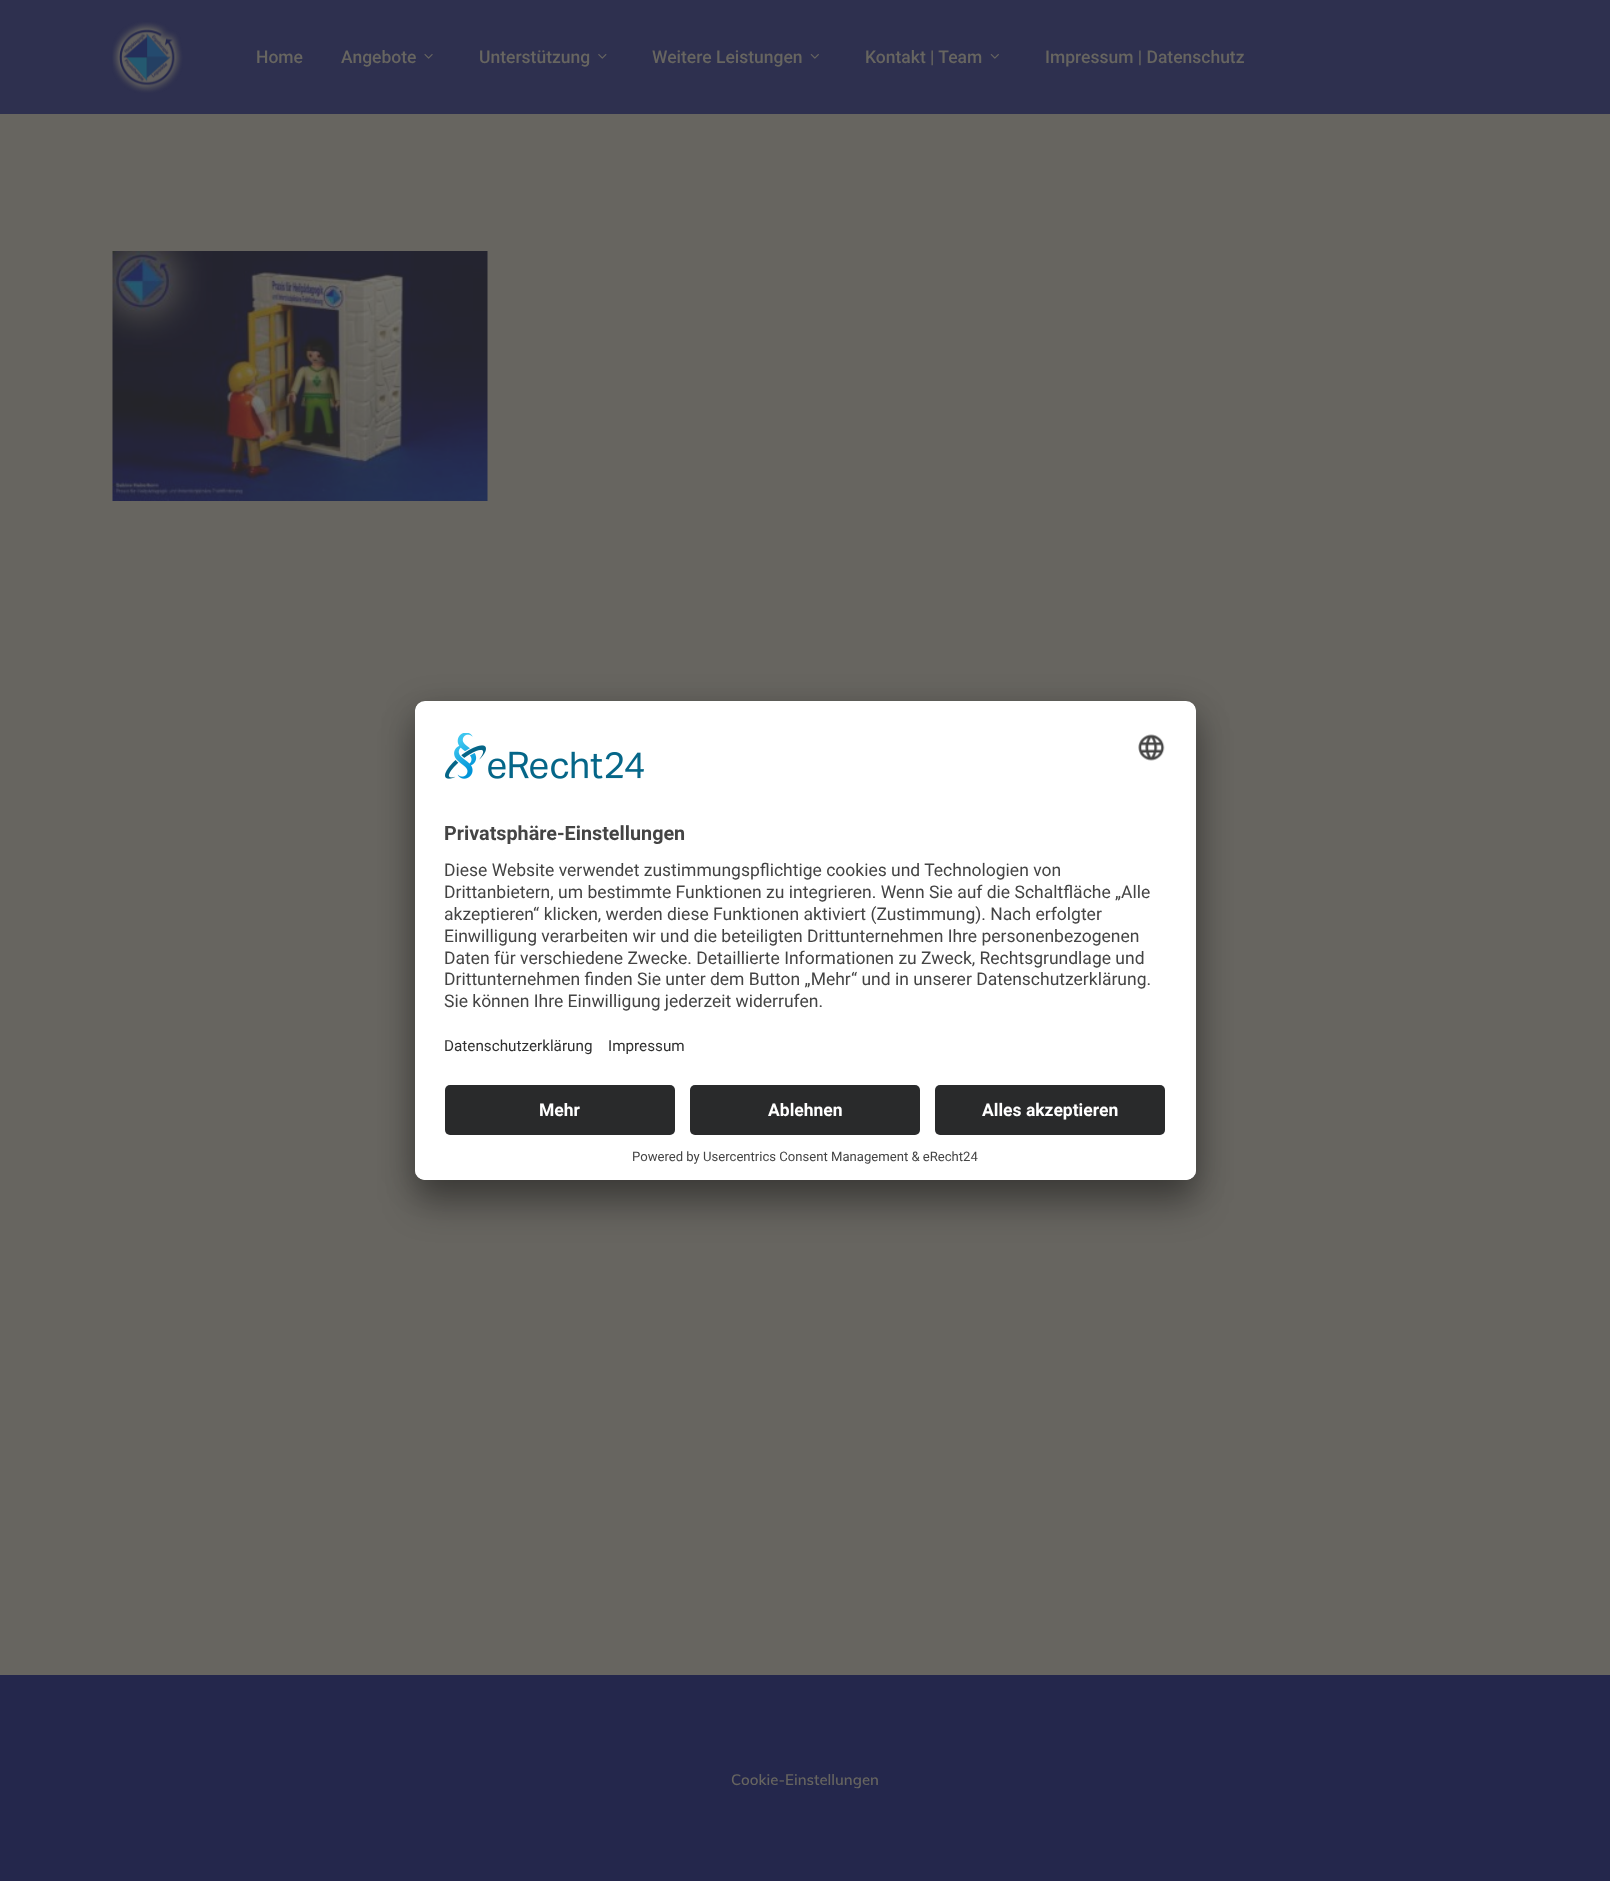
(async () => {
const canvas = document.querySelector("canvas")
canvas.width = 1610
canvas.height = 1881
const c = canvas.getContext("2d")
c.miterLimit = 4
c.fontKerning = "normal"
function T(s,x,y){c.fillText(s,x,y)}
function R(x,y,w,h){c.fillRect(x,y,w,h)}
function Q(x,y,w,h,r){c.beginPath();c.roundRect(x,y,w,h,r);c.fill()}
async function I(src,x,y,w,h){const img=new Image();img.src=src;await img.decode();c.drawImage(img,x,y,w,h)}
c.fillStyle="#676560"
R(0,0,1610,1881)
c.fillStyle="#2e304f"
R(0,0,1610,114)
await I("1.png",112,21,71,72)
c.font="500 17.5px Roboto"
c.fillStyle="#676560"
T("Home",256,63)
T("Angebote",341,63)
await I("2.png",424,54,9,5)
T("Unterstützung",479,63)
await I("3.png",598,54,9,5)
T("Weitere Leistungen",652,63)
await I("4.png",810,54,9,5)
T("Kontakt | Team",865,63)
await I("4.png",990,54,9,5)
T("Impressum | Datenschutz",1045,63)
c.fillStyle="#0000004d"
c.filter="blur(17.5px)"
c.beginPath()
c.roundRect(415,726,781,479,10)
c.fill()
c.filter="none"
c.fillStyle="#00000038"
c.filter="blur(16px)"
c.beginPath()
c.roundRect(415,708,781,478,10)
c.fill()
c.filter="none"
c.fillStyle="#fff"
Q(415,701,781,479,10)
c.save()
c.beginPath()
c.roundRect(415,701,781,479,10)
c.clip()
c.beginPath()
c.roundRect(415,701,781,374,[10,10,0,0])
c.clip()
R(415,703,781,372)
c.restore()
await I("5.png",445,733,199,46)
await I("6.png",1138,734,27,27)
c.font="bold 19.75px Roboto"
c.fillStyle="#444"
T("Privatsphäre-Einstellungen",444,840)
c.font="17.5px Roboto"
T("Diese Website verwendet zustimmungspflichtige cookies und Technologien von",444,876)
T("Drittanbietern, um bestimmte Funktionen zu integrieren. Wenn Sie auf die Schaltfläche „Alle",444,898)
T("akzeptieren“ klicken, werden diese Funktionen aktiviert (Zustimmung). Nach erfolgter",444,920)
T("Einwilligung verarbeiten wir und die beteiligten Drittunternehmen Ihre personenbezogenen",444,942)
T("Daten für verschiedene Zwecke. Detaillierte Informationen zu Zweck, Rechtsgrundlage und",444,964)
T("Drittunternehmen finden Sie unter dem Button „Mehr“ und in unserer Datenschutzerklärung.",444,985)
T("Sie können Ihre Einwilligung jederzeit widerrufen.",444,1007)
c.font="15.25px Roboto"
c.fillStyle="#303030"
T("Datenschutzerklärung",444,1051)
T("Impressum",608,1051)
c.fillStyle="#fff"
c.beginPath()
c.roundRect(415,1075,781,105,[0,0,10,10])
c.fill()
c.fillStyle="#292a2b"
Q(445,1085,230,50,5)
c.font="bold 17.5px Roboto"
c.fillStyle="#fff"
T("Mehr",539,1116)
c.fillStyle="#292a2b"
Q(690,1085,230,50,5)
c.fillStyle="#fff"
T("Ablehnen",768,1116)
c.fillStyle="#292a2b"
Q(935,1085,230,50,5)
c.fillStyle="#fff"
T("Alles akzeptieren",982,1116)
c.font="13.1px Roboto"
c.fillStyle="#444"
T("Powered by Usercentrics Consent Management & eRecht24",632,1161)
await I("7.png",112,251,376,250)
c.fillStyle="#24274c"
R(0,1675,1610,206)
c.font="600 15px Muli"
c.fillStyle="#676560"
T("Cookie-Einstellungen",731,1785)
})()
